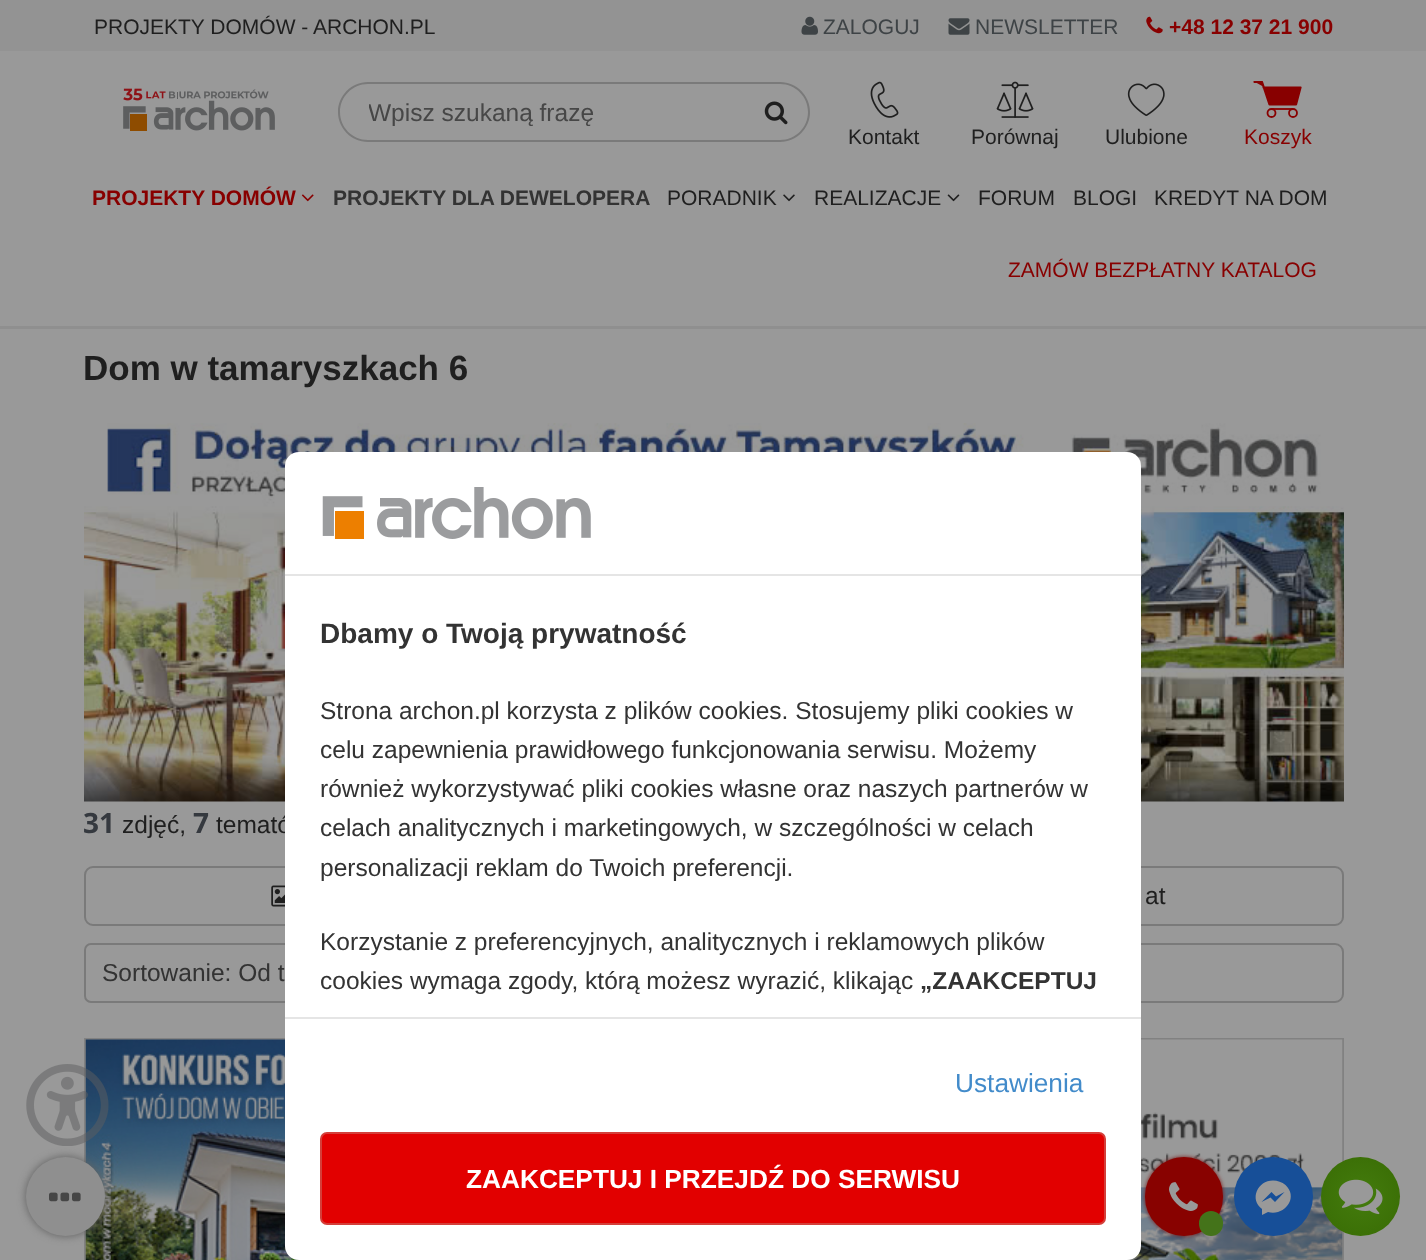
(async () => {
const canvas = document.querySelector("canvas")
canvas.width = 1426
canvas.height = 1260
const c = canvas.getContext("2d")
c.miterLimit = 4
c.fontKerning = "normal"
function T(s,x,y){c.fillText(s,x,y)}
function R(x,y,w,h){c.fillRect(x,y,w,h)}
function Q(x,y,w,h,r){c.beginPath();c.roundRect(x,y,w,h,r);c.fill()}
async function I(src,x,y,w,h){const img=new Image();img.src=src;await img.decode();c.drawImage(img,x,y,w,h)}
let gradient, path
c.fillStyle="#999"
R(0,0,1426,1260)
c.fillStyle="#939393"
R(0,0,1426,51)
c.font="21px Liberation Sans"
c.fillStyle="#1f1f1f"
T("PROJEKTY DOMÓW - ARCHON.PL",94,34)
await I("1.png",801,16,17,19)
c.fillStyle="#3e4346"
T("ZALOGUJ",823,34)
await I("2.png",948,18,22,17)
T("NEWSLETTER",975,34)
await I("3.png",1146,16,17,18)
c.font="bold 21px Liberation Sans"
c.fillStyle="#800"
T("+48 12 37 21 900",1169,34)
c.fillStyle="#8f8f8f"
R(0,326,1426,3)
await I("4.png",123,88,152,43)
c.fillStyle="#7a7a7a"
path = new Path2D("M368 82h376v60h-376c-17 0-30-14-30-30c0-16 13-30 30-30zm0 2h376v56h-376c-16 0-28-13-28-28c0-15 12-28 28-28z")
c.fill(path,"evenodd")
c.save()
c.beginPath()
c.rect(369,98,364,28)
c.clip()
c.font="24.5px Liberation Sans"
c.fillStyle="#474747"
T("Wpisz szukaną frazę",368,121)
c.restore()
path = new Path2D("M744 82h36c17 0 30 14 30 30c0 16-13 30-30 30h-36zm0 2h36c16 0 28 13 28 28c0 15-12 28-28 28h-36z")
c.fill(path,"evenodd")
await I("5.png",764,101,24,24)
await I("6.png",870,81,29,37)
c.font="21px Liberation Sans"
c.fillStyle="#1f1f1f"
T("Kontakt",848,144)
await I("7.png",996,81,38,37)
T("Porównaj",971,144)
await I("8.png",1127,83,38,33)
T("Ulubione",1105,144)
c.fillStyle="#800"
path = new Path2D("M1255 82h7l8 23h26l4-18h-36")
c.fill(path)
c.save()
c.beginPath()
c.rect(1253,81,49,38)
c.clip()
path = new Path2D("M1254.5 82h7.5l7.5 22.5h26.5l4.5-17h-37")
c.strokeStyle="#800"
c.lineWidth=2.2
c.lineCap="round"
c.lineJoin="round"
c.stroke(path)
c.restore()
c.beginPath()
c.arc(1293,113,4,0,7)
c.strokeStyle="#800"
c.lineWidth=1.8
c.stroke()
c.beginPath()
c.arc(1271.5,113,4,0,7)
c.stroke()
c.fillStyle="#880000e6"
R(1272,108,21,2)
c.fillStyle="#800"
T("Koszyk",1244,144)
c.font="bold 21px Liberation Sans"
T("PROJEKTY DOMÓW",92,205)
await I("9.png",301,194,13,8)
c.fillStyle="#333"
T("PROJEKTY DLA DEWELOPERA",333,205)
c.font="21px Liberation Sans"
c.fillStyle="#1f1f1f"
T("PORADNIK",667,205)
await I("10.png",783,194,12,8)
T("REALIZACJE",814,205)
await I("11.png",947,194,13,8)
T("FORUM",978,205)
T("BLOGI",1073,205)
T("KREDYT NA DOM",1154,205)
c.fillStyle="#800"
T("ZAMÓW BEZPŁATNY KATALOG",1008,277)
c.font="bold 35px Liberation Sans"
c.fillStyle="#1f1f1f"
T("Dom w tamaryszkach 6",83,380)
await I("13.png",84,423,1260,379)
c.fillStyle="#fff"
c.beginPath()
c.roundRect(285,452,856,124,[14,14,0,0])
c.fill()
c.fillStyle="#e5e5e5"
R(285,574,856,2)
await I("12.png",322,487,269,52)
c.font="24.5px Liberation Sans"
c.fillStyle="#1f1f1f"
T("temató",216,833)
c.beginPath()
c.roundRect(85,867,619,58,8)
c.strokeStyle="#7a7a7a"
c.lineWidth=2
c.stroke()
c.beginPath()
c.roundRect(724,867,619,58,8)
c.stroke()
c.beginPath()
c.roundRect(85,944,619,58,6)
c.stroke()
c.beginPath()
c.roundRect(724,944,619,58,8)
c.stroke()
c.fillStyle="#fff"
R(285,576,856,441)
c.font="bold 28px Liberation Sans"
c.fillStyle="#333"
T("Dbamy o Twoją prywatność",320,643)
c.font="24.5px Liberation Sans"
T("Strona archon.pl korzysta z plików cookies. Stosujemy pliki cookies w",320,719)
T("celu zapewnienia prawidłowego funkcjonowania serwisu. Możemy",320,758)
T("również wykorzystywać pliki cookies własne oraz naszych partnerów w",320,797)
T("celach analitycznych i marketingowych, w szczególności w celach",320,836)
T("personalizacji reklam do Twoich preferencji.",320,876)
T("Korzystanie z preferencyjnych, analitycznych i reklamowych plików",320,950)
T("cookies wymaga zgody, którą możesz wyrazić, klikając",320,989)
c.font="bold 24.5px Liberation Sans"
T("„ZAAKCEPTUJ",920,989)
c.strokeStyle="#818181"
c.strokeRect(85,1039,619,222)
await I("15.png",85,1039,214,221)
c.strokeRect(724,1039,619,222)
await I("16.png",1127,1039,216,221)
c.fillStyle="#791716"
c.filter="blur(2px)"
c.beginPath()
c.roundRect(1145,1157,78,79,39)
c.fill()
c.filter="none"
c.fillStyle="#fff"
c.beginPath()
c.roundRect(285,1017,856,243,[0,0,14,14])
c.fill()
c.fillStyle="#e5e5e5"
R(285,1017,856,2)
c.font="26.25px Liberation Sans"
c.fillStyle="#428bca"
T("Ustawienia",955,1092)
c.fillStyle="#e20000"
c.beginPath()
c.roundRect(321,1133,784,91,6)
c.fill()
c.strokeStyle="#d43f3a"
c.stroke()
c.font="bold 26.25px Liberation Sans"
c.fillStyle="#fff"
T("ZAAKCEPTUJ I PRZEJDŹ DO SERWISU",466,1188)
c.font="bold 28px Open Sans"
c.fillStyle="#35393f"
T("31",83,833)
c.font="24.5px Liberation Sans"
c.fillStyle="#1f1f1f"
T("zdjęć,",122,833)
c.font="bold 28px Open Sans"
c.fillStyle="#35393f"
T("7",193,833)
await I("14.png",271,885,14,22)
c.font="24.5px Liberation Sans"
c.fillStyle="#1f1f1f"
T("at",1145,904)
c.fillStyle="#333"
T("Sortowanie: Od t",102,981)
await I("17.png",26,1064,83,82)
c.fillStyle="#5e5e5e"
c.filter="blur(4.5px)"
c.beginPath()
c.roundRect(26,1157,79,79,39.5)
c.fill()
c.filter="none"
c.fillStyle="#8f8f8f"
c.beginPath()
c.arc(65.5,1196.5,39.5,0,7)
c.fill()
await I("18.png",49,1192,32,10)
c.fillStyle="#880200"
Q(1145,1157,78,79,39)
await I("19.png",1169,1182,29,29)
c.fillStyle="#44731a"
Q(1199,1211,24,25,12)
c.fillStyle="#174f98"
c.beginPath()
c.arc(1273.5,1196.5,39.5,0,7)
c.fill()
c.fillStyle="#999"
path = new Path2D("M1273 1180.5c-15.5 0-24 19-11 28.5v6l6-3c16.5 4.5 31-14.5 17.5-27c-3.5-3-8-4.5-12.5-4.5zm2 21.5l-4.5-4.5l-9 4.5l10-10l4.5 4.5l8.5-4.5z")
c.fill(path,"evenodd")
gradient = c.createRadialGradient(1361,1196,0,1361,1196,56)
gradient.addColorStop(0,"#447c0d")
gradient.addColorStop(1,"#386b04")
c.fillStyle = gradient
c.beginPath()
c.arc(1360.5,1196.5,39.5,0,7)
c.fill()
await I("20.png",1338,1179,45,36)
})()
